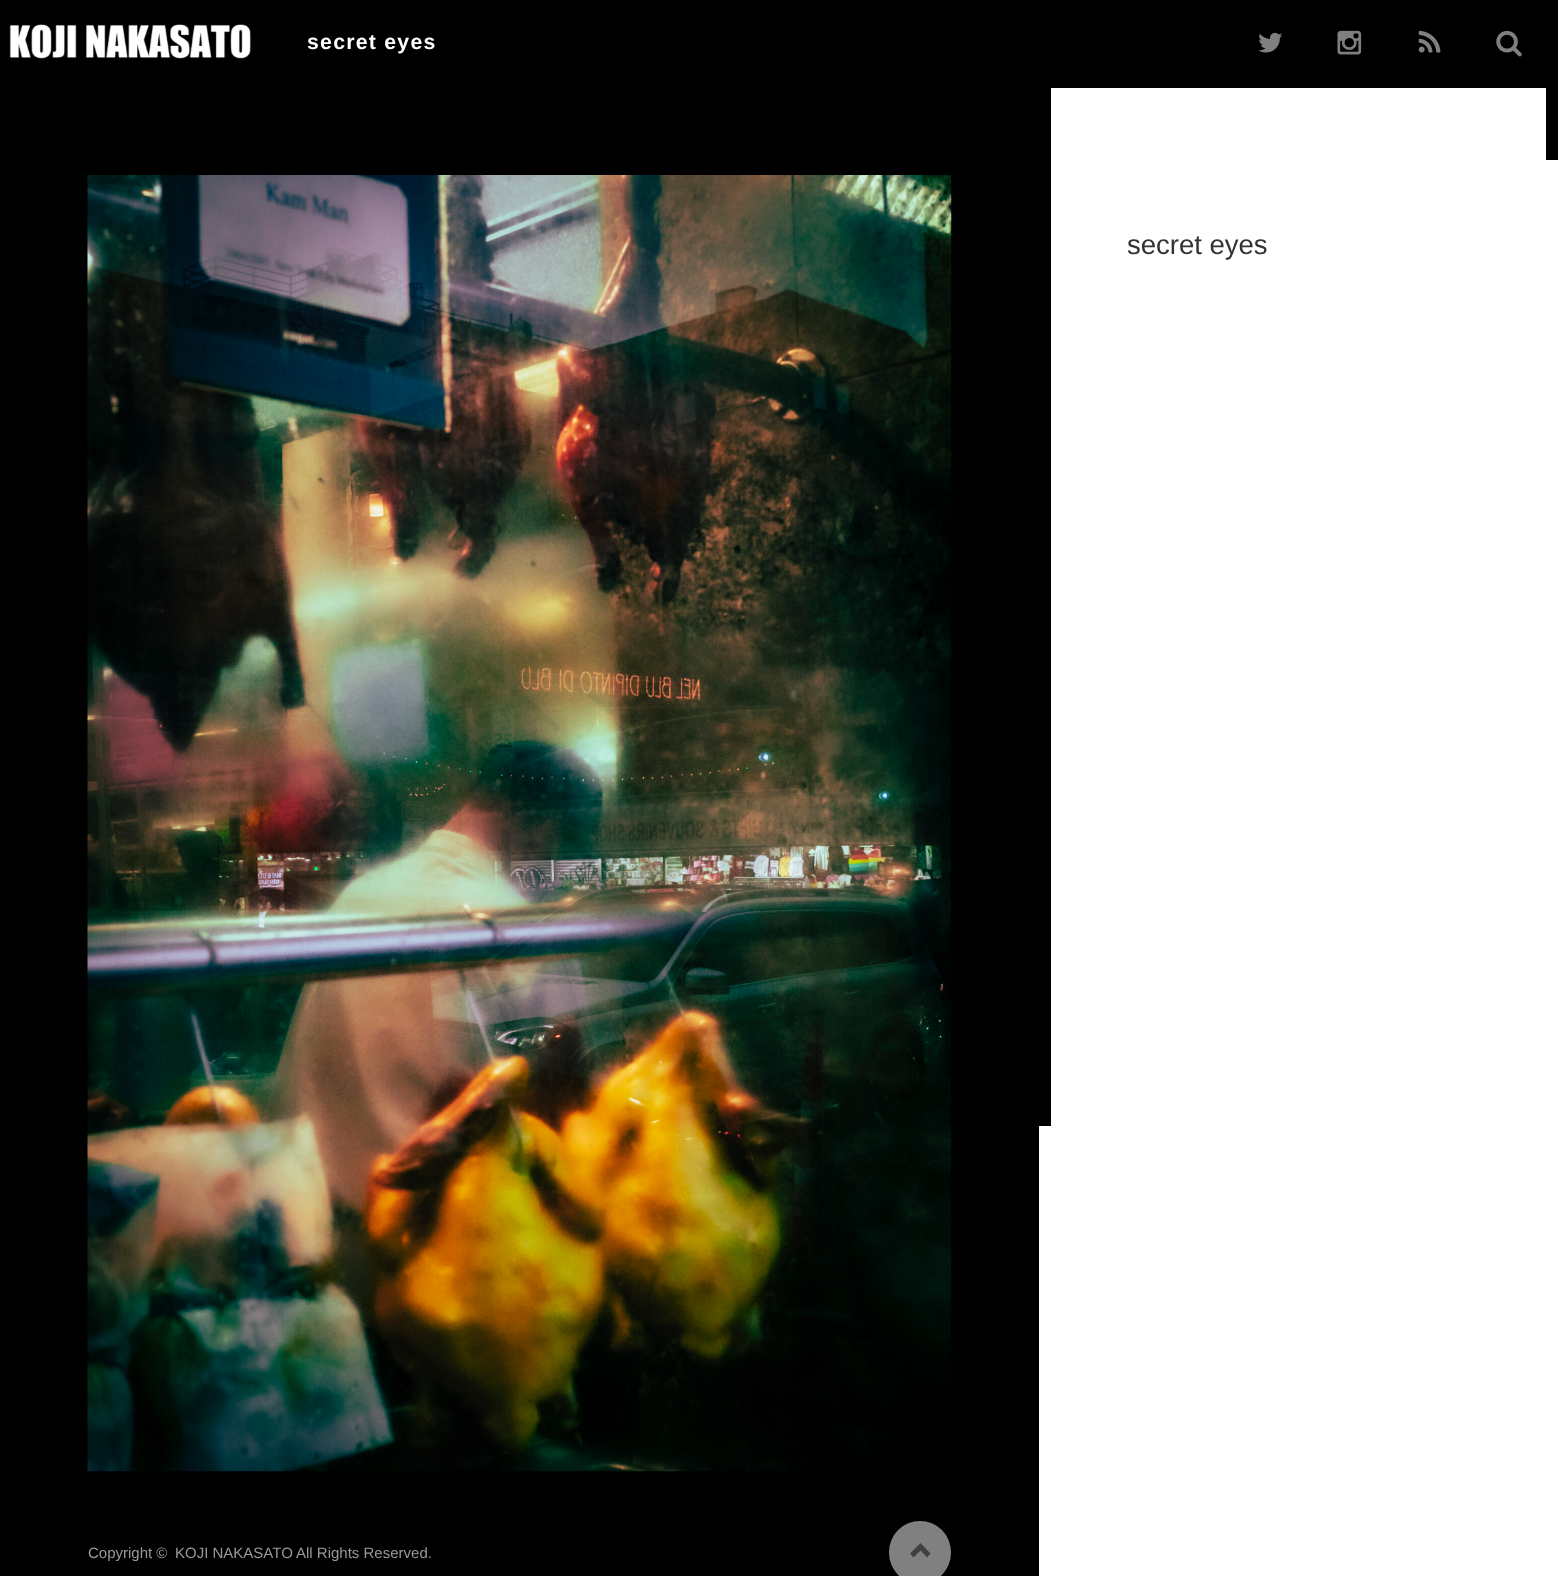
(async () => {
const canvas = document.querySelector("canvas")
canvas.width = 1558
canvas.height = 1576
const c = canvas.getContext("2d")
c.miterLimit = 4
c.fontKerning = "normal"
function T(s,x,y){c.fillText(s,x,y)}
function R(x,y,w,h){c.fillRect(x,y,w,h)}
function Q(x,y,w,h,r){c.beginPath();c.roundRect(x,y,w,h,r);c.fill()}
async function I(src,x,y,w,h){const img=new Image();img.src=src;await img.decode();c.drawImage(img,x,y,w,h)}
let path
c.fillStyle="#000"
R(0,0,1558,1576)
await I("1.png",9,24,242,35)
c.letterSpacing="1.25px"
c.font="bold 21.25px Liberation Sans"
c.fillStyle="#fff"
T("secret eyes",307,49)
await I("2.png",1258,32,25,21)
await I("3.png",1337,30,25,25)
await I("4.png",1418,30,23,23)
await I("5.png",1496,30,26,27)
R(1039,88,519,1488)
c.fillStyle="#000"
R(1546,88,12,72)
R(1039,88,12,1038)
c.letterSpacing="0px"
c.font="27.5px Liberation Sans"
c.fillStyle="#333"
T("secret eyes",1127,254)
await I("6.png",87,175,865,1297)
c.font="15px Liberation Sans"
c.fillStyle="#999"
T("Copyright ©",88,1558)
T("KOJI NAKASATO",175,1558)
T("All Rights Reserved.",296,1558)
c.fillStyle="#808080"
Q(889,1521,62,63,31)
c.fillStyle="#404040"
path = new Path2D("M930.5 1553.5l-3.5 4l-6.5-7l-7 7l-3.5-4l10.5-10.5z")
c.fill(path)
})()
